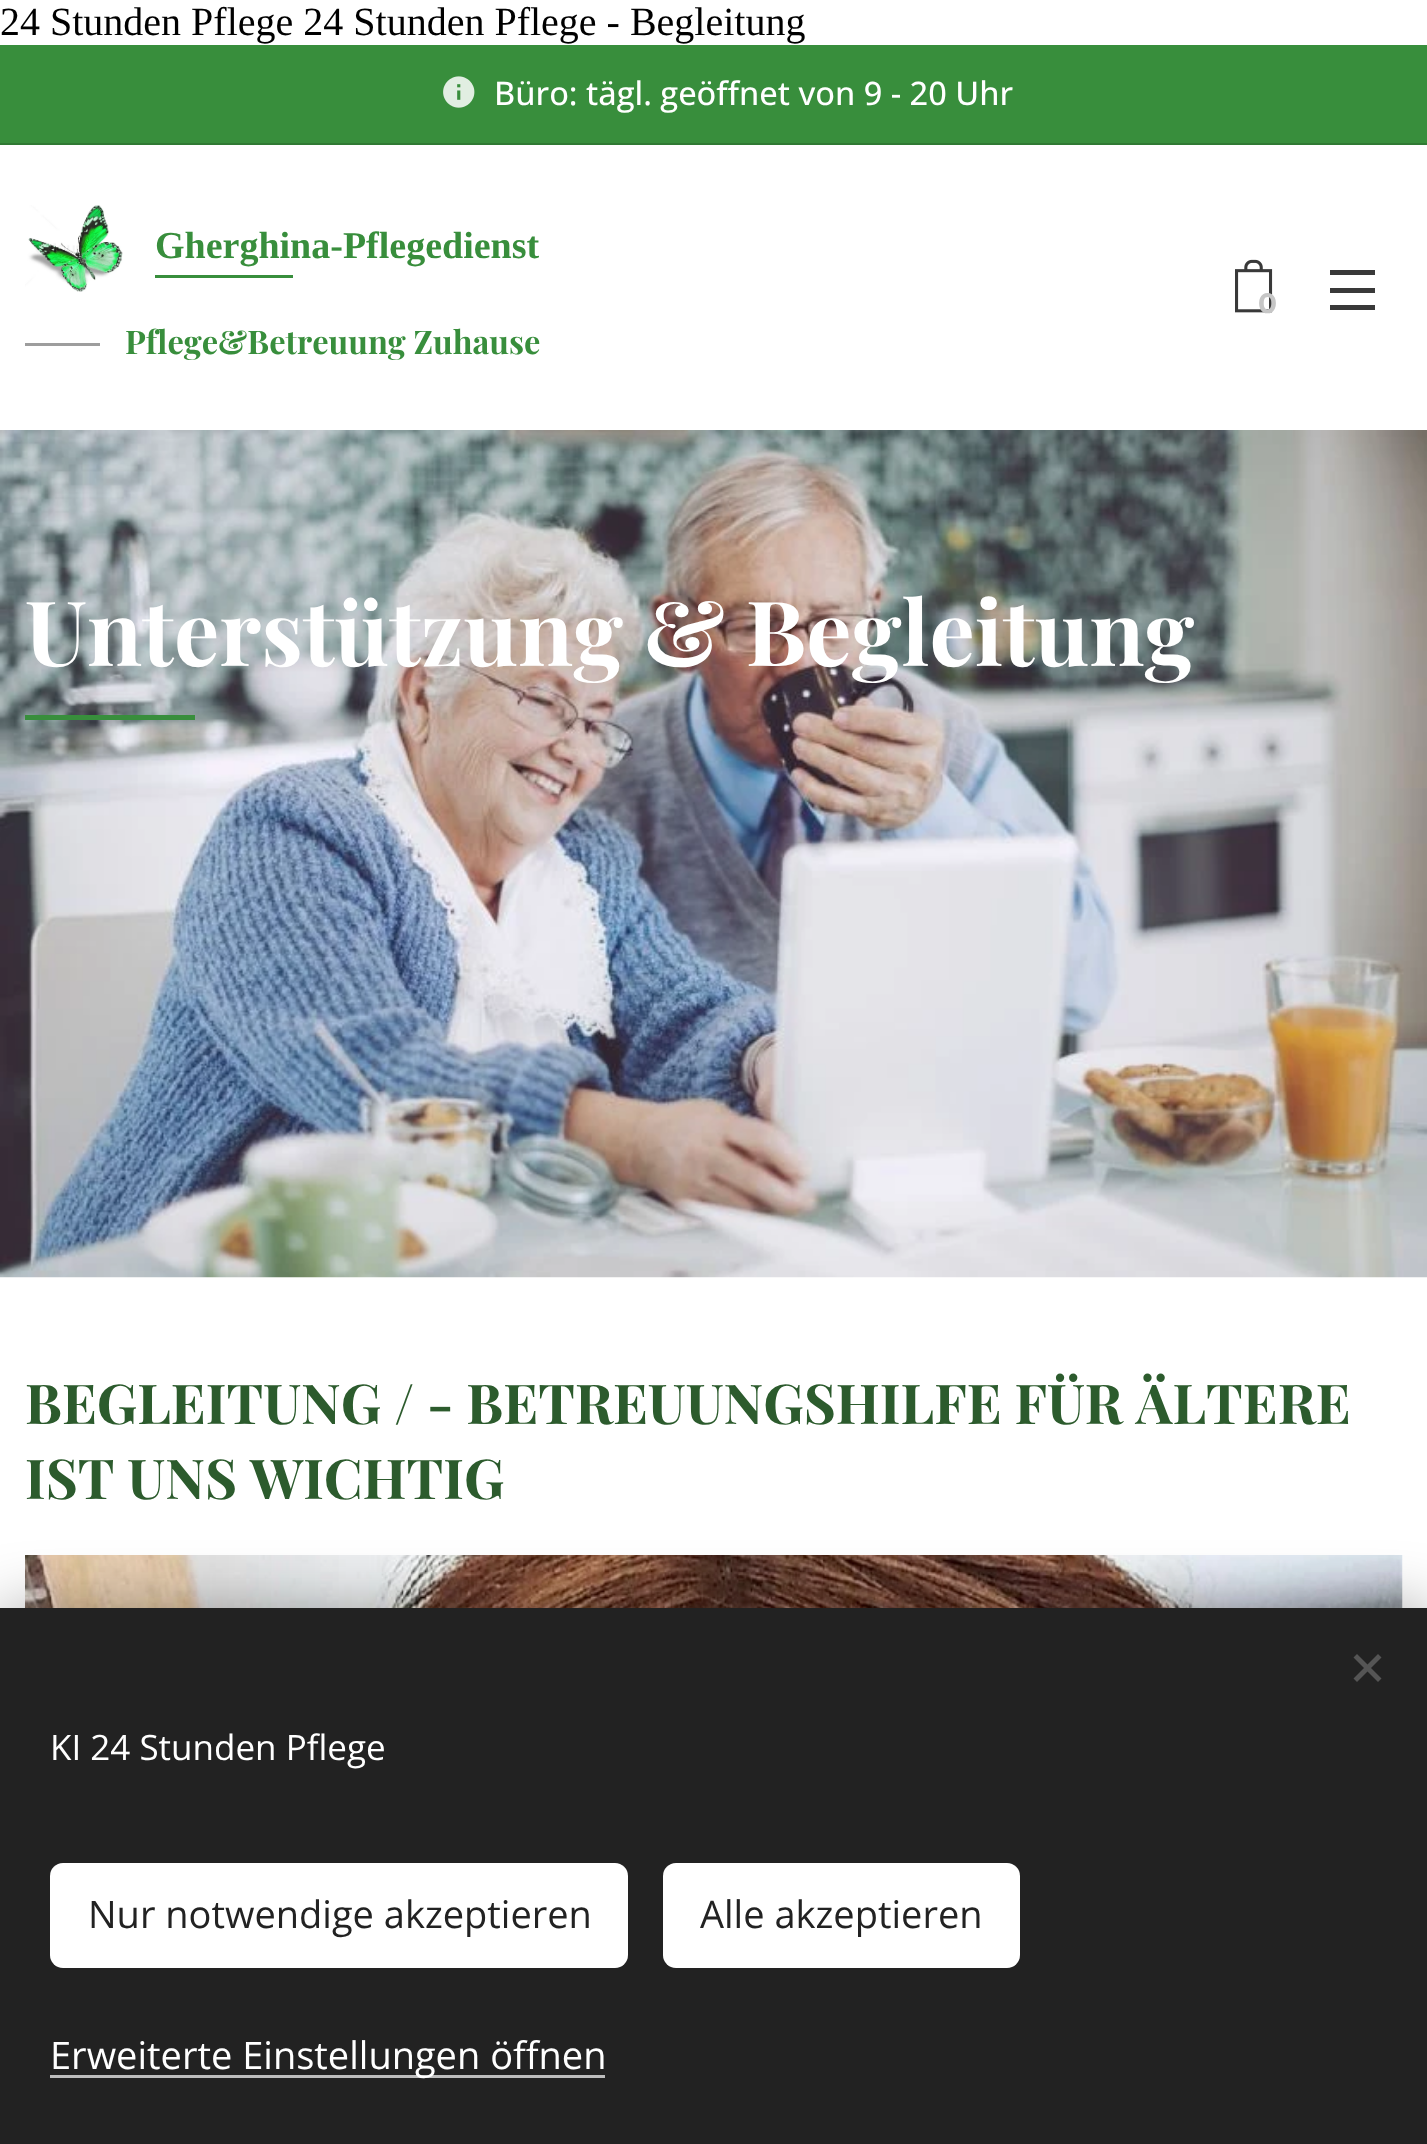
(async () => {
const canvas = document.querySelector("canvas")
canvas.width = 1427
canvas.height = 2144
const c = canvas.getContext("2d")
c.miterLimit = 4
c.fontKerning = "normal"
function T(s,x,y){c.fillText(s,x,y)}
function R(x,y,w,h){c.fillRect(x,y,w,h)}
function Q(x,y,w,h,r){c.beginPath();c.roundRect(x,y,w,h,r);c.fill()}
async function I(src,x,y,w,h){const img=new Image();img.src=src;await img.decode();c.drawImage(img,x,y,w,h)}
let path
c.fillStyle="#fff"
R(0,0,1427,2144)
c.font="40px Liberation Serif"
c.fillStyle="#000"
T("24 Stunden Pflege 24 Stunden Pflege - Begleitung",0,35)
c.fillStyle="#388e3c"
R(0,45,1427,98)
c.fillStyle="#307933"
R(0,143,1427,2)
await I("1.png",443,76,32,32)
c.font="500 32.5px Open Sans"
c.fillStyle="#fff"
T("Büro: tägl. geöffnet von 9 - 20 Uhr",494,105)
await I("2.png",25,205,98,87)
c.font="bold 38px Tinos"
c.fillStyle="#388e3c"
T("Gherghina-Pflegedienst",155,258)
R(155,275,138,3)
c.fillStyle="#9d9d9d"
R(25,343,75,3)
c.font="bold 32.5px Playfair Display"
c.fillStyle="#388e3c"
T("Pflege&Betreuung Zuhause",125,354)
await I("3.png",1235,259,38,54)
c.font="bold 28px Montserrat"
c.fillStyle="#c6c6c6"
T("0",1258,313)
c.fillStyle="#393939"
R(1330,288,45,5)
R(1330,270,45,5)
R(1330,305,45,5)
await I("4.png",0,430,1427,848)
c.font="bold 90px Playfair Display"
c.fillStyle="#fff"
T("Unterstützung & Begleitung",25,666)
c.fillStyle="#388e3c"
R(25,715,170,5)
c.font="bold 55px Playfair Display"
c.fillStyle="#2c5b2d"
T("BEGLEITUNG / - BETREUUNGSHILFE FÜR ÄLTERE",25,1424)
T("IST UNS WICHTIG",25,1499)
await I("5.png",25,1555,1378,53)
c.fillStyle="#00000054"
c.filter="blur(31px)"
c.beginPath()
c.rect(0,1608,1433,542)
c.fill()
c.filter="none"
c.fillStyle="#222"
R(0,1608,1427,536)
c.fillStyle="#555"
path = new Path2D("M1353.5 1678.5l24.5-24.5l3.5 3.5l-24.5 24.5z")
c.fill(path)
path = new Path2D("M1357 1654l24.5 24.5l-3.5 3.5l-24.5-24.5z")
c.fill(path)
c.font="35px Open Sans"
c.fillStyle="#fff"
T("KI 24 Stunden Pflege",50,1760)
Q(50,1863,578,105,13)
c.font="38px Open Sans"
c.fillStyle="#222"
T("Nur notwendige akzeptieren",88,1928)
c.fillStyle="#fff"
Q(663,1863,357,105,13)
c.fillStyle="#222"
T("Alle akzeptieren",700,1928)
c.fillStyle="#bdbdbd"
R(50,2075,555,3)
c.fillStyle="#fff"
T("Erweiterte Einstellungen öffnen",50,2069)
})()
